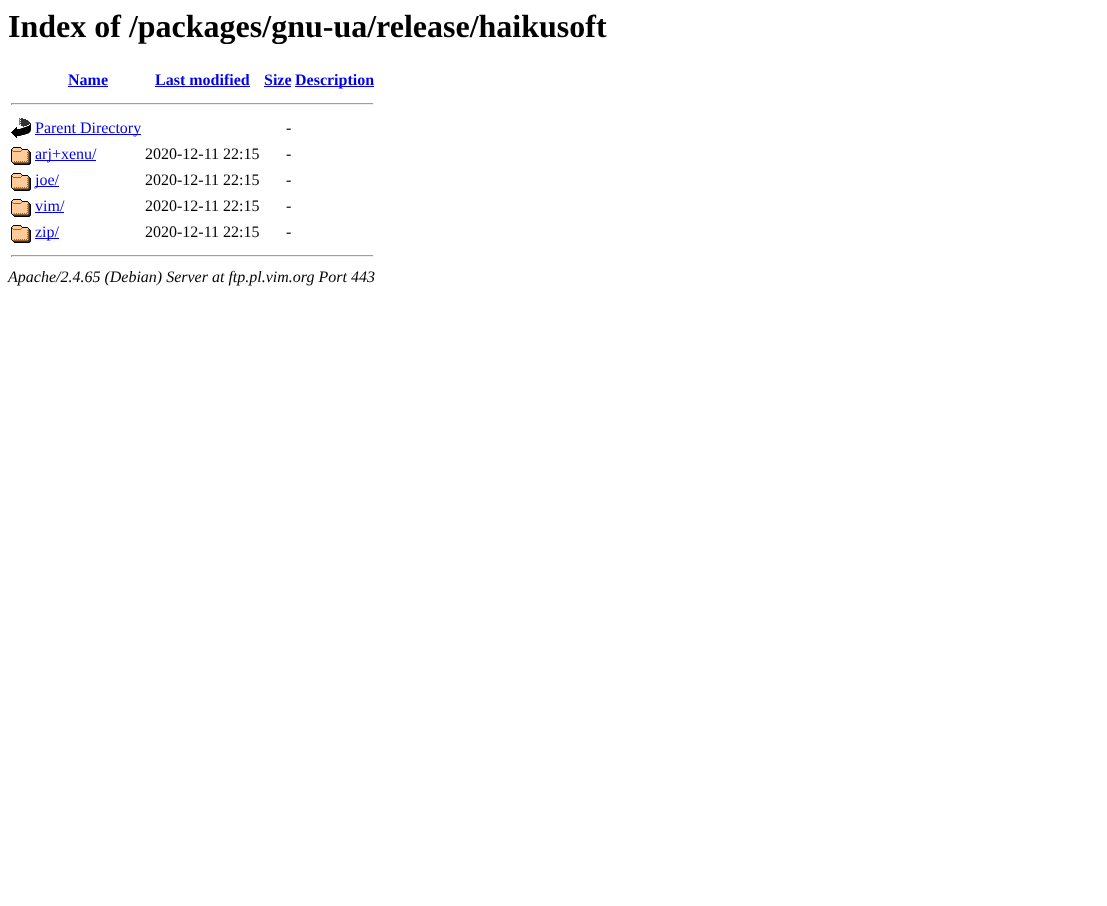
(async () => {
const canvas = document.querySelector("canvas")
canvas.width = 1107
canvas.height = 906
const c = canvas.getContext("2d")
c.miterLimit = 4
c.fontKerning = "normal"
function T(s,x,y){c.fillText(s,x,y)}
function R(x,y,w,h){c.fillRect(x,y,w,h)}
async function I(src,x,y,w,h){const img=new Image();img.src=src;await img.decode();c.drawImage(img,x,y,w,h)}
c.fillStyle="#fff"
R(0,0,1107,906)
c.font="bold 32px Liberation Serif"
c.fillStyle="#000"
T("Index of /packages/gnu-ua/release/haikusoft",8,37)
c.font="bold 16px Liberation Serif"
c.fillStyle="#00e"
T("Name",68,85)
R(68,86,40,1)
T("Last modified",155,85)
R(155,86,95,1)
T("Size",264,85)
R(264,86,27,1)
R(295,86,79,1)
T("Description",295,85)
c.fillStyle="#9f9f9f"
R(11,103,363,1)
c.fillStyle="#eee"
R(373,103,1,2)
R(11,104,363,1)
c.fillStyle="#9f9f9f"
R(11,103,1,2)
await I("1.png",11,118,20,20)
c.fillStyle="#00e"
R(35,134,106,1)
c.font="16px Liberation Serif"
T("Parent Directory",35,133)
c.fillStyle="#000"
T("-",286,133)
await I("2.png",11,147,20,18)
c.fillStyle="#00e"
R(35,160,61,1)
T("arj+xenu/",35,159)
c.fillStyle="#000"
T("2020-12-11 22:15",145,159)
T("-",286,159)
await I("2.png",11,173,20,18)
c.fillStyle="#00e"
R(35,186,24,1)
T("joe/",35,185)
c.fillStyle="#000"
T("2020-12-11 22:15",145,185)
T("-",286,185)
await I("2.png",11,199,20,18)
c.fillStyle="#00e"
T("vim/",35,211)
R(35,212,29,1)
c.fillStyle="#000"
T("2020-12-11 22:15",145,211)
T("-",286,211)
await I("2.png",11,225,20,18)
c.fillStyle="#00e"
R(35,238,24,1)
T("zip/",35,237)
c.fillStyle="#000"
T("2020-12-11 22:15",145,237)
T("-",286,237)
c.fillStyle="#9f9f9f"
R(11,255,363,1)
c.fillStyle="#eee"
R(373,255,1,2)
R(11,256,363,1)
c.fillStyle="#9f9f9f"
R(11,255,1,2)
c.font="italic 16px Liberation Serif"
c.fillStyle="#000"
T("Apache/2.4.65 (Debian) Server at ftp.pl.vim.org Port 443",8,282)
})()
